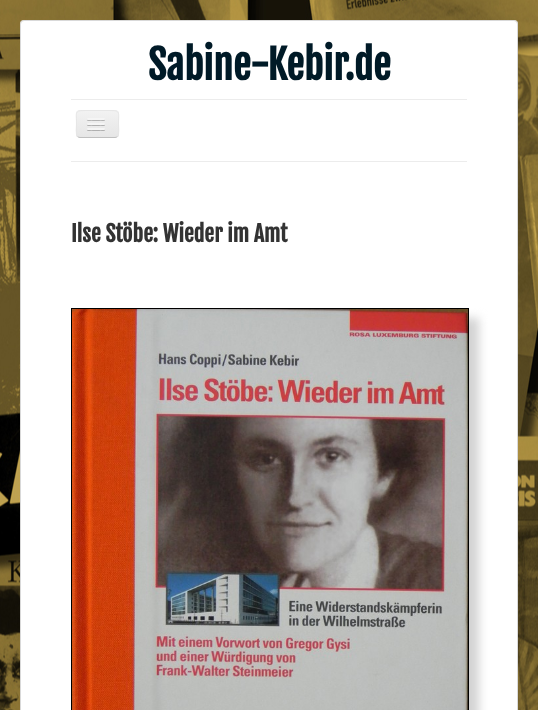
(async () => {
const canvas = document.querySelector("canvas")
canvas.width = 538
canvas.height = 710
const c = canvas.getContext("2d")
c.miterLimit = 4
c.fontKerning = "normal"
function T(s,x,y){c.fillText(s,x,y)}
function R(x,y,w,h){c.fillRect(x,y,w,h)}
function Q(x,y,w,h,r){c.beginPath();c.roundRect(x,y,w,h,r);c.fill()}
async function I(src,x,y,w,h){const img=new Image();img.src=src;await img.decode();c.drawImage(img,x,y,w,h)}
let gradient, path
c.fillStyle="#fff"
R(0,0,538,710)
await I("1.png",0,0,538,710)
Q(20,20,498,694,4)
c.beginPath()
c.roundRect(20.5,20.5,497,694,3.5)
c.strokeStyle="#00000026"
c.stroke()
c.font="bold 40px Fjalla One"
c.fillStyle="#001a27"
T("Sabine-Kebir.de",148,80)
c.fillStyle="#ececec"
R(71,99,396,1)
R(71,161,396,1)
c.fillStyle="#ededed"
Q(76,110,43,28,4)
c.save()
c.beginPath()
c.roundRect(76,110,43,28,4)
c.clip()
gradient = c.createLinearGradient(98,111,98,137)
gradient.addColorStop(0,"#f2f2f2")
gradient.addColorStop(1,"#e6e6e6")
c.fillStyle = gradient
R(76,111,43,26)
c.restore()
path = new Path2D("M117.5 136.5c-.5 .5-1.5 1-2.5 1h-35c-1 0-2-.5-2.5-1")
c.strokeStyle="#bfbfbf"
c.stroke(path)
path = new Path2D("M77.5 136.5c-2-2.5-1-10-1-12.5c0-12-2.5-13.5 9.5-13.5h23c12 0 9.5 1.5 9.5 13.5c0 2.5 1 10-1 12.5")
c.strokeStyle="#e6e6e6"
c.stroke(path)
c.fillStyle="#b3b3b3"
path = new Path2D("M87 119.5c-1 2 3.5 1.5 3.5 1.5h11c0 0 4.5 .5 3.5-1.5c-1 1-7.5 .5-9 .5c-1.5 0-8 .5-9-.5z")
c.fill(path)
c.fillStyle="#f5f5f5"
Q(87,118,18,2,1)
c.fillStyle="#b0b0b0"
path = new Path2D("M87 124.5c-1 2 3.5 1.5 3.5 1.5h11c0 0 4.5 .5 3.5-1.5c-1 1-7.5 .5-9 .5c-1.5 0-8 .5-9-.5z")
c.fill(path)
c.fillStyle="#f5f5f5"
Q(87,123,18,2,1)
c.fillStyle="#afafaf"
path = new Path2D("M87 129.5c-1 2 3.5 1.5 3.5 1.5h11c0 0 4.5 .5 3.5-1.5c-1 1-7.5 .5-9 .5c-1.5 0-8 .5-9-.5z")
c.fill(path)
c.fillStyle="#f5f5f5"
Q(87,128,18,2,1)
c.font="bold 22px Fjalla One"
c.fillStyle="#333"
T("Ilse Stöbe: Wieder im Amt",71,242)
c.fillStyle="#d3d3d3"
c.filter="blur(5px)"
c.beginPath()
c.rect(81,318,398,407)
c.fill()
c.filter="none"
c.strokeStyle="#000"
c.strokeRect(71.5,308.5,397,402)
await I("2.png",72,309,396,401)
})()
